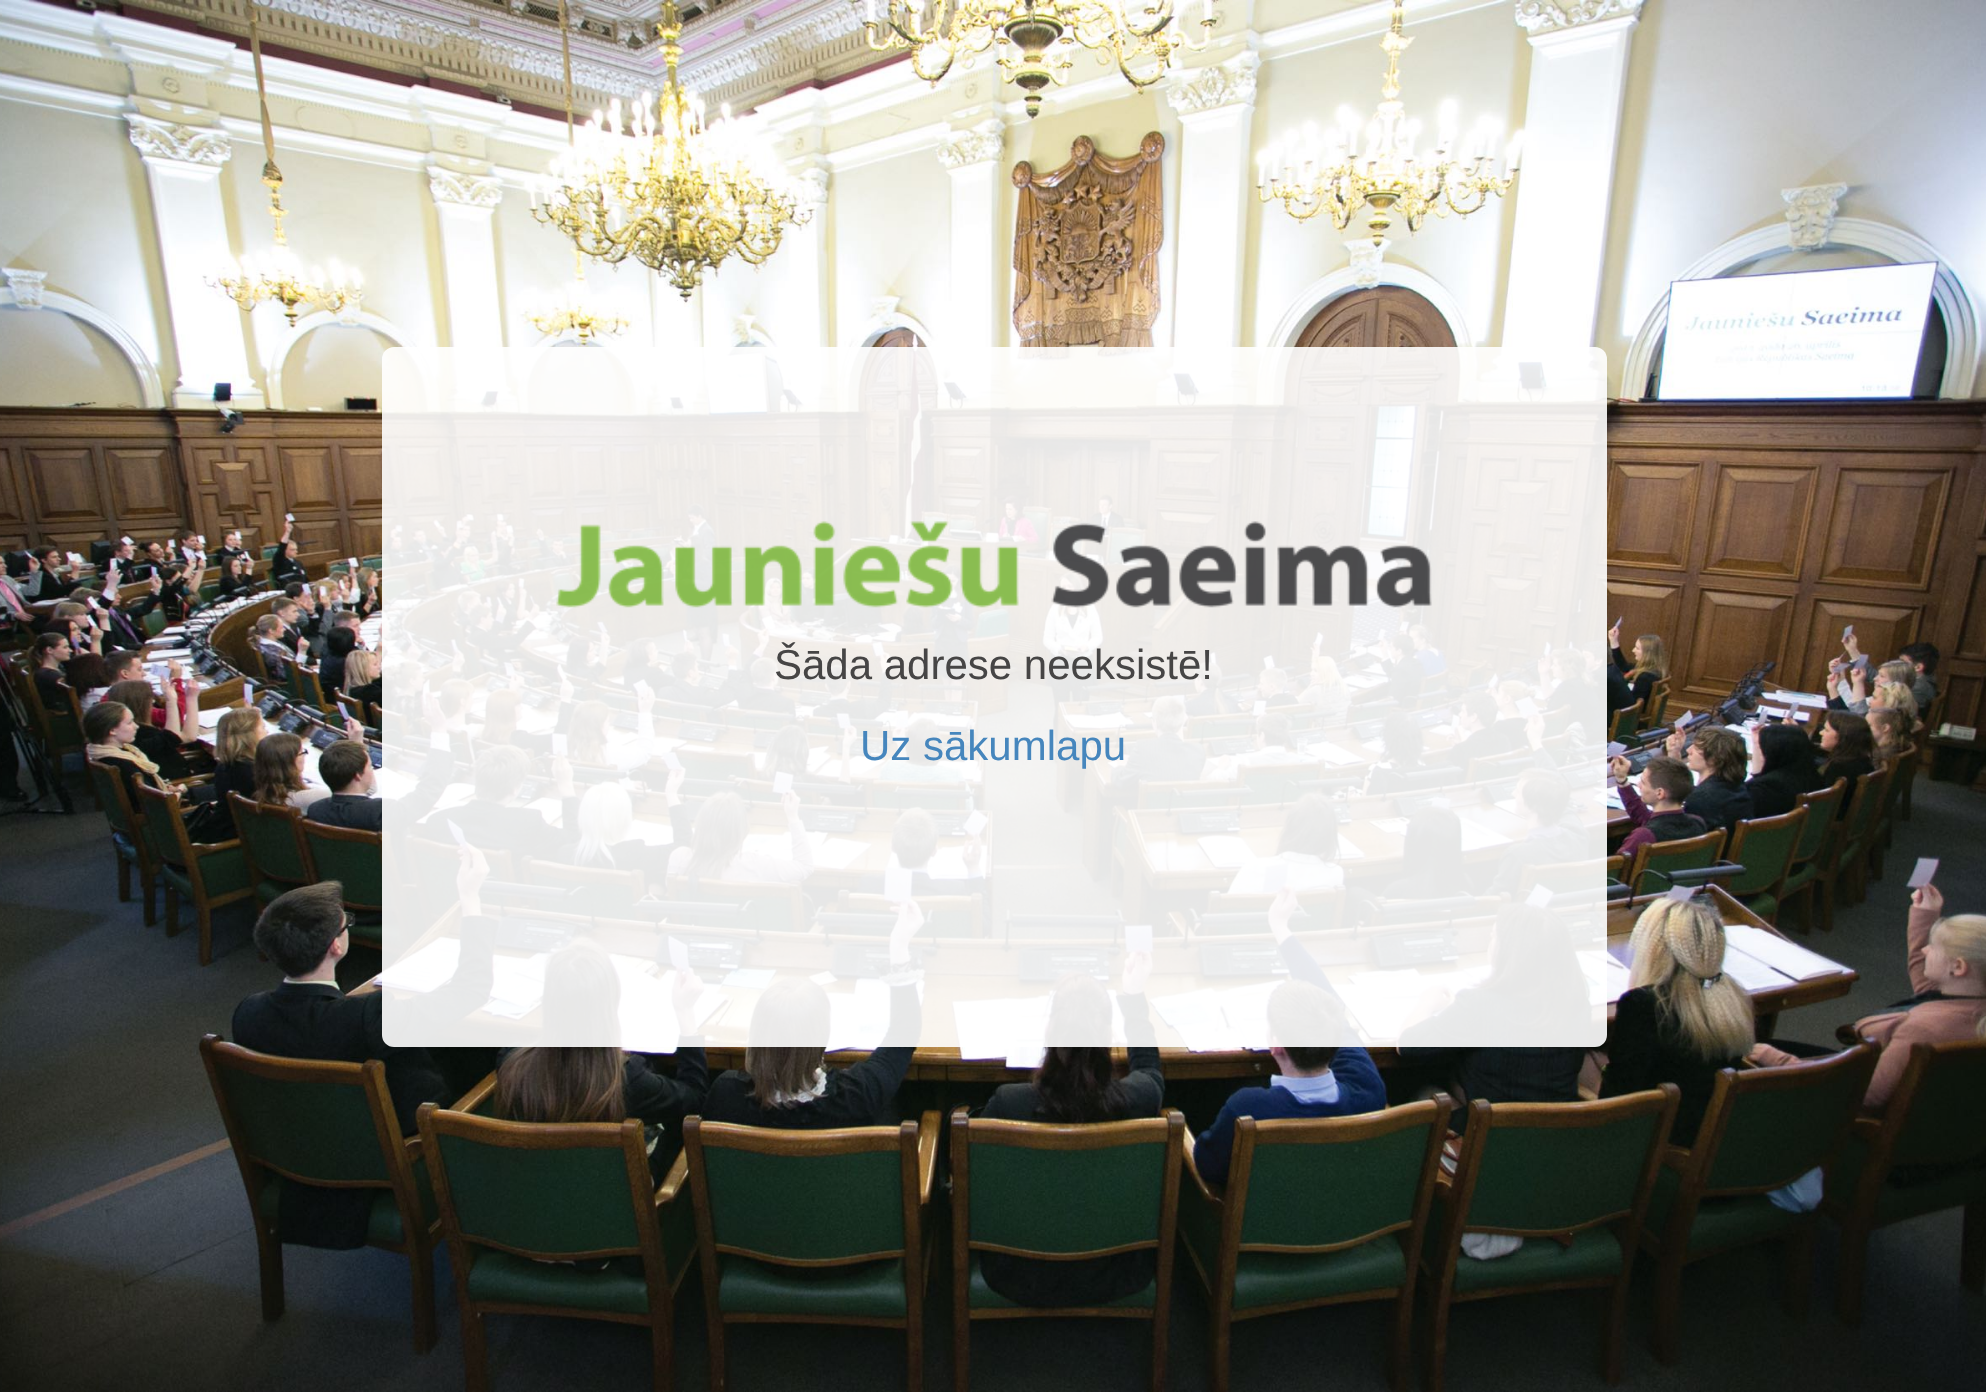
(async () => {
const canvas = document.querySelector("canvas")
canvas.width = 1986
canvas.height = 1392
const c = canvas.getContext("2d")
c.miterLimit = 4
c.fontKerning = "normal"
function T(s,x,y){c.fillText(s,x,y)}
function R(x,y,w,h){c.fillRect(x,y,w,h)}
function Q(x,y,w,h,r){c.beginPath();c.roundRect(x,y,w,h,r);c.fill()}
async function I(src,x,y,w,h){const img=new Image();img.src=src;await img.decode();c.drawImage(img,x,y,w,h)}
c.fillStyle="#fff"
R(0,0,1986,1392)
await I("1.png",0,0,1986,1392)
c.fillStyle="#ffffffe6"
Q(382,347,1225,700,12)
await I("2.png",556,521,876,87)
c.font="42px Liberation Sans"
c.fillStyle="#464545"
T("Šāda adrese neeksistē!",774,679)
c.fillStyle="#4686bd"
T("Uz sākumlapu",860,760)
})()
